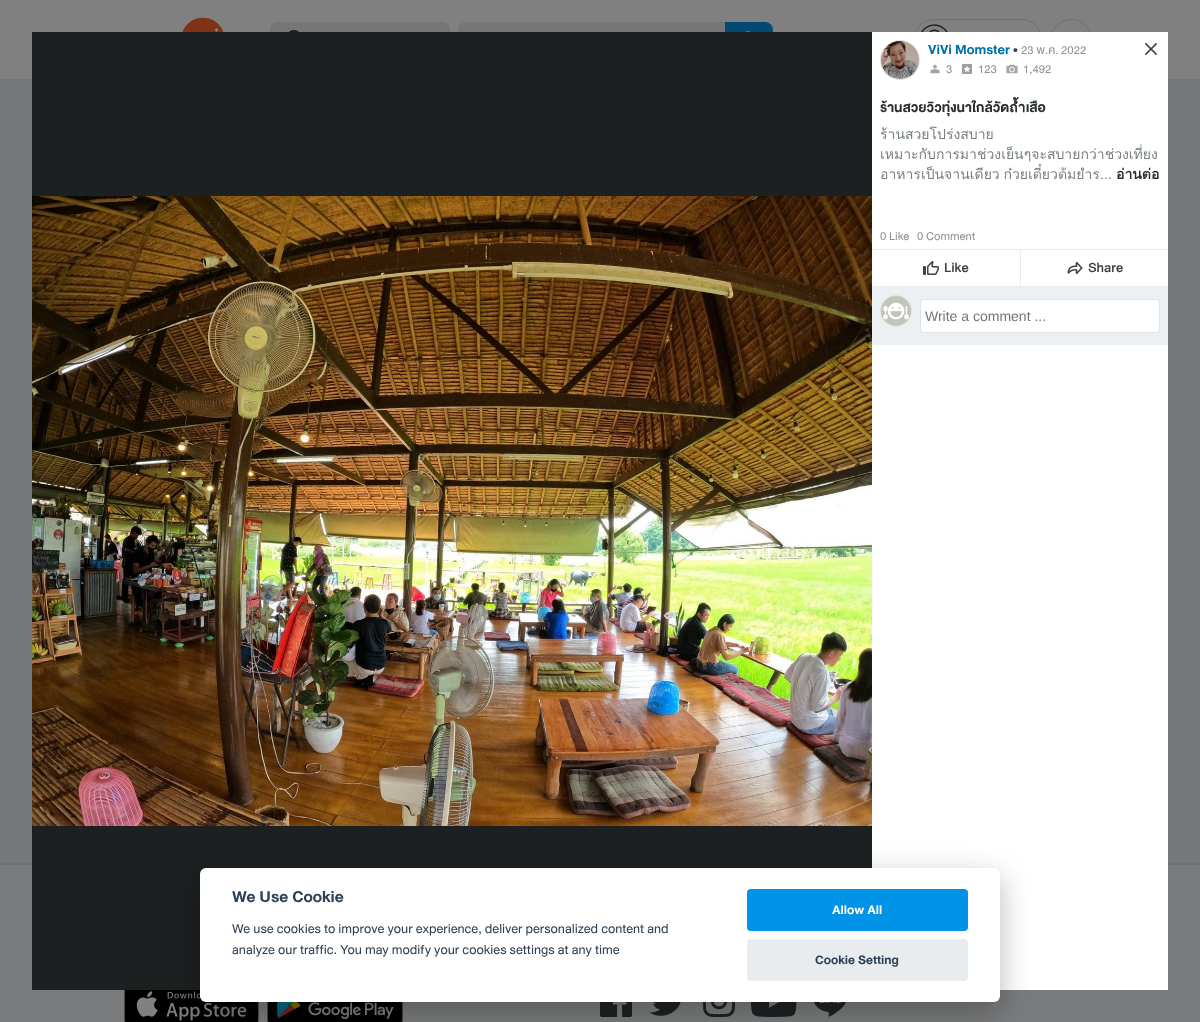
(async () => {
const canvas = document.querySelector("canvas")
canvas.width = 1200
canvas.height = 1022
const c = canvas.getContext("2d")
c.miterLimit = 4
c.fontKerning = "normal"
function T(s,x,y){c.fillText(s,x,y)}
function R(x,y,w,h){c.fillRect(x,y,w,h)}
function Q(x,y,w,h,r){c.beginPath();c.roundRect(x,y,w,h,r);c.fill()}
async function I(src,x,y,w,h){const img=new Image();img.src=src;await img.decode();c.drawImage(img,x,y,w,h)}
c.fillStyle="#808080"
R(0,0,1200,1022)
c.fillStyle="#757677"
R(0,79,1200,1)
await I("1.png",182,17,42,15)
Q(270,22,180,36,8)
await I("2.png",288,30,12,2)
c.beginPath()
c.roundRect(458,22,267,36,[8,0,0,8])
c.fill()
c.fillStyle="#004a74"
c.beginPath()
c.roundRect(725,22,48,36,[0,8,8,0])
c.fill()
await I("3.png",745,31,6,1)
c.beginPath()
c.roundRect(914.5,19.5,127,41,19.5)
c.strokeStyle="#6f7172"
c.stroke()
await I("4.png",921,24,27,8)
c.beginPath()
c.arc(1071,40,20.5,0,7)
c.stroke()
c.fillStyle="#777879"
R(0,80,1200,783)
c.fillStyle="#7a7b7c"
R(0,865,1200,157)
c.fillStyle="#6f7172"
R(0,863,1200,2)
await I("5.png",124,990,135,32)
await I("6.png",267,1002,136,20)
await I("7.png",600,1002,32,15)
await I("8.png",649,1002,32,14)
await I("9.png",703,1002,32,15)
await I("10.png",751,1002,46,15)
await I("11.png",814,1002,32,15)
c.fillStyle="#fff"
R(872,32,296,958)
c.fillStyle="#1d2021"
R(32,32,840,958)
await I("12.png",32,196,840,630)
await I("13.png",1145,43,12,12)
c.fillStyle="#edf0f2"
c.beginPath()
c.arc(900,60,19.5,0,7)
c.fill()
c.strokeStyle="#dee2e4"
c.stroke()
await I("14.png",881,41,38,38)
c.font="bold 14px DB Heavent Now"
c.fillStyle="#0070a8"
T("ViVi Momster",928,54)
c.font="14px DB Heavent Now"
c.fillStyle="#3d4245"
T("•",1013,54)
c.font="12px DB Heavent Now"
c.fillStyle="#8c9396"
T("23 พ.ค. 2022",1021,54)
await I("15.png",930,64,10,10)
T("3",946,73)
await I("16.png",962,64,10,10)
T("123",978,73)
await I("17.png",1006,64,12,10)
T("1,492",1023,73)
c.font="bold 14px DB Heavent Now"
c.fillStyle="#282d2e"
T("ร้านสวยวิวทุ่งนาใกล้วัดถ้ำเสือ",880,112)
c.font="14px Loma"
c.fillStyle="#787f83"
T("ร้านสวยโปร่งสบาย",880,139)
T("เหมาะกับการมาช่วงเย็นๆจะสบายกว่าช่วงเที่ยง",880,159)
c.wordSpacing="-1px"
T("อาหารเป็นจานเดียว ก๋วยเตี๋ยวต้มยำร",880,179)
c.wordSpacing="0px"
c.font="14px Liberation Sans"
T("...",1100,179)
c.font="bold 14px Loma"
c.fillStyle="#282d2e"
T("อ่านต่อ",1116,179)
c.font="12px DB Heavent Now"
c.fillStyle="#8c9396"
T("0 Like",880,240)
T("0 Comment",917,240)
c.fillStyle="#e9ecee"
R(872,249,296,38)
c.fillStyle="#fff"
R(872,250,148,36)
await I("18.png",923,261,16,14)
c.font="500 14px DB Heavent Now"
c.fillStyle="#3d4245"
T("Like",944,272)
c.fillStyle="#fff"
R(1021,250,147,36)
await I("19.png",1067,261,16,14)
c.fillStyle="#3d4245"
T("Share",1088,272)
c.fillStyle="#edf0f2"
R(872,287,296,58)
c.beginPath()
c.arc(896,311,15.5,0,7)
c.stroke()
await I("20.png",881,296,30,30)
c.fillStyle="#fff"
c.beginPath()
c.roundRect(920.5,299.5,239,33,3.5)
c.fill()
c.stroke()
c.font="14px Liberation Sans"
c.fillStyle="#757575"
T("Write a comment ...",925,321)
c.fillStyle="#02020347"
c.filter="blur(15px)"
c.beginPath()
c.roundRect(200,878,800,134,6)
c.fill()
c.filter="none"
c.fillStyle="#fff"
Q(200,868,800,134,6)
c.font="bold 16.75px DB Heavent Now"
c.fillStyle="#2d4156"
T("We Use Cookie",232,902)
c.font="13.6px DB Heavent Now"
T("We use cookies to improve your experience, deliver personalized content and",232,933)
T("analyze our traffic. You may modify your cookies settings at any time",232,954)
c.fillStyle="#0093e8"
Q(747,889,221,42,4)
c.font="bold 13px DB Heavent Now"
c.fillStyle="#fff"
T("Allow All",832,914)
c.fillStyle="#e9ecee"
Q(747,939,221,42,4)
c.fillStyle="#2d4156"
T("Cookie Setting",815,964)
})()
